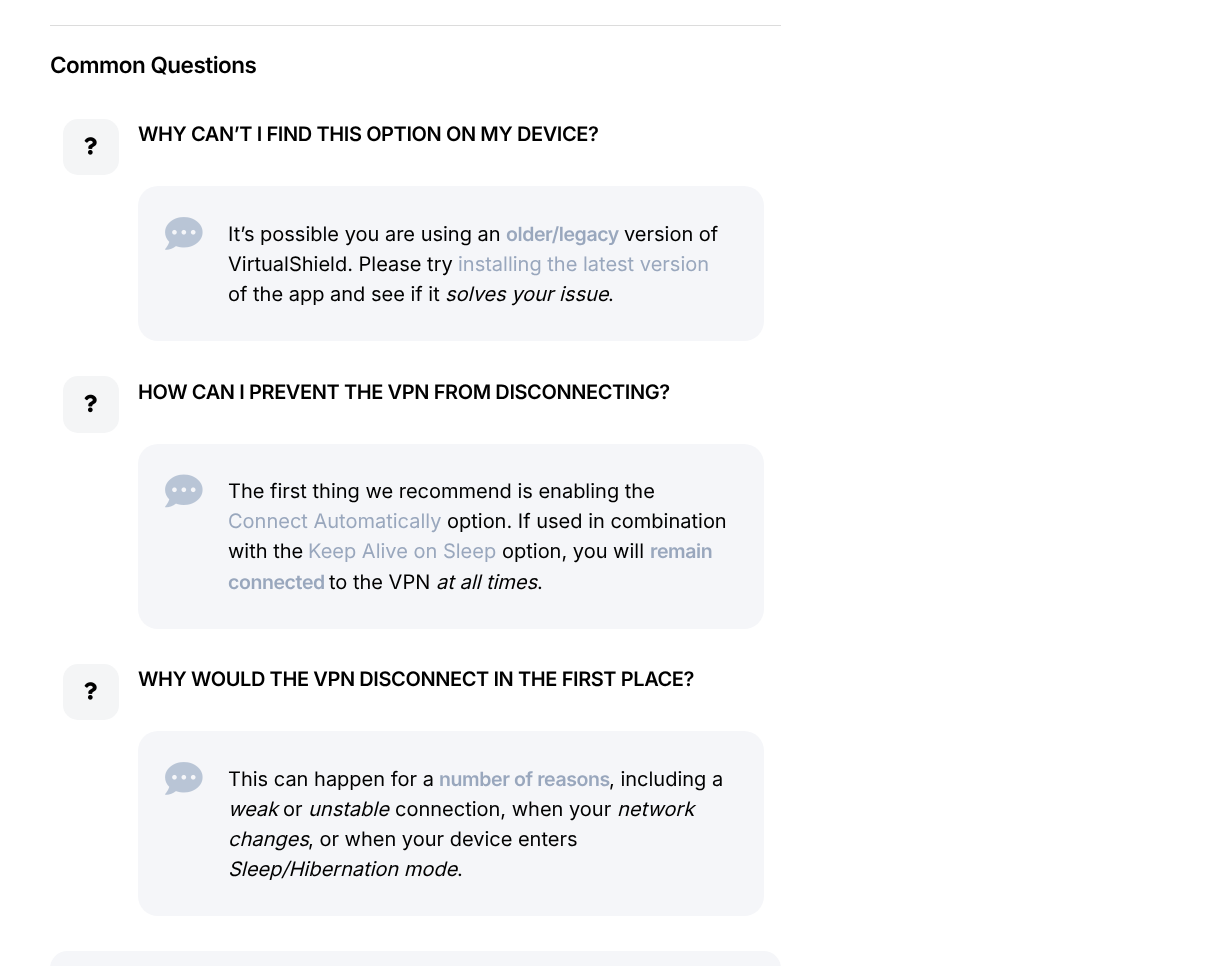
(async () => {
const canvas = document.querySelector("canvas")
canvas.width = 1208
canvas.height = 966
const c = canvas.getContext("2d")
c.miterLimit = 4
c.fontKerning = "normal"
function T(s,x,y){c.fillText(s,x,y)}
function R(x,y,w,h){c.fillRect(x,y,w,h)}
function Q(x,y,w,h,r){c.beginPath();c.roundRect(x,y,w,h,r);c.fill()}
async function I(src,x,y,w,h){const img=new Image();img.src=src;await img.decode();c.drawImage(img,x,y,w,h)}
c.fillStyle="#fff"
R(0,0,1208,966)
c.fillStyle="#dcdcdc"
R(50,25,731,1)
c.letterSpacing="-0.5px"
c.font="600 22.5px Inter"
c.fillStyle="#000"
T("Common Questions",50,73)
c.fillStyle="#f4f5f6"
Q(63,119,56,56,15)
await I("1.png",84,137,13,18)
c.letterSpacing="-0.4px"
c.font="600 20px Inter"
c.fillStyle="#000"
T("WHY CAN’T I FIND THIS OPTION ON MY DEVICE?",138,141)
c.fillStyle="#f5f6f9"
Q(138,186,626,155,20)
await I("2.png",165,217,38,33)
c.letterSpacing="0px"
c.font="20px Inter"
c.fillStyle="#000"
T("It’s possible you are using an",228,241)
c.letterSpacing="-0.4px"
c.font="600 19.5px Inter"
c.fillStyle="#99a7bd"
T("older/legacy",506,241)
c.letterSpacing="0px"
c.font="20px Inter"
c.fillStyle="#000"
T("version of",624,241)
T("VirtualShield. Please try",228,271)
c.fillStyle="#99a7bd"
T("installing the latest version",458,271)
c.fillStyle="#000"
T("of the app and see if it",228,301)
c.font="italic 20px Inter"
T("solves your issue",445,301)
c.font="20px Inter"
T(".",608,301)
c.fillStyle="#f4f5f6"
Q(63,376,56,57,15)
await I("3.png",84,394,13,19)
c.letterSpacing="-0.4px"
c.font="600 20px Inter"
c.fillStyle="#000"
T("HOW CAN I PREVENT THE VPN FROM DISCONNECTING?",138,399)
c.fillStyle="#f5f6f9"
Q(138,444,626,185,20)
await I("4.png",165,474,38,34)
c.letterSpacing="0px"
c.font="20px Inter"
c.fillStyle="#000"
T("The first thing we recommend is enabling the",228,498)
c.fillStyle="#99a7bd"
T("Connect Automatically",228,528)
c.fillStyle="#000"
T("option. If used in combination",447,528)
T("with the",228,558)
c.fillStyle="#99a7bd"
T("Keep Alive on Sleep",308,558)
c.fillStyle="#000"
T("option, you will",502,558)
c.letterSpacing="-0.4px"
c.font="600 19.5px Inter"
c.fillStyle="#99a7bd"
T("remain",650,558)
T("connected",228,589)
c.letterSpacing="0px"
c.font="20px Inter"
c.fillStyle="#000"
T("to the VPN",329,589)
c.font="italic 20px Inter"
T("at all times",436,589)
c.font="20px Inter"
T(".",537,589)
c.fillStyle="#f4f5f6"
Q(63,664,56,56,15)
await I("1.png",84,682,13,18)
c.letterSpacing="-0.4px"
c.font="600 20px Inter"
c.fillStyle="#000"
T("WHY WOULD THE VPN DISCONNECT IN THE FIRST PLACE?",138,686)
c.fillStyle="#f5f6f9"
Q(138,731,626,185,20)
await I("2.png",165,762,38,33)
c.letterSpacing="0px"
c.font="20px Inter"
c.fillStyle="#000"
T("This can happen for a",228,786)
c.letterSpacing="-0.4px"
c.font="600 19.5px Inter"
c.fillStyle="#99a7bd"
T("number of reasons",439,786)
c.letterSpacing="0px"
c.font="20px Inter"
c.fillStyle="#000"
T(", including a",609,786)
c.font="italic 20px Inter"
T("weak",228,816)
c.font="20px Inter"
T("or",283,816)
c.font="italic 20px Inter"
T("unstable",308,816)
c.font="20px Inter"
T("connection, when your",395,816)
c.font="italic 20px Inter"
T("network",617,816)
T("changes",228,846)
c.font="20px Inter"
T(", or when your device enters",308,846)
c.font="italic 20px Inter"
T("Sleep/Hibernation mode",228,876)
c.font="20px Inter"
T(".",457,876)
c.fillStyle="#f5f6f9"
Q(50,951,731,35,20)
})()
